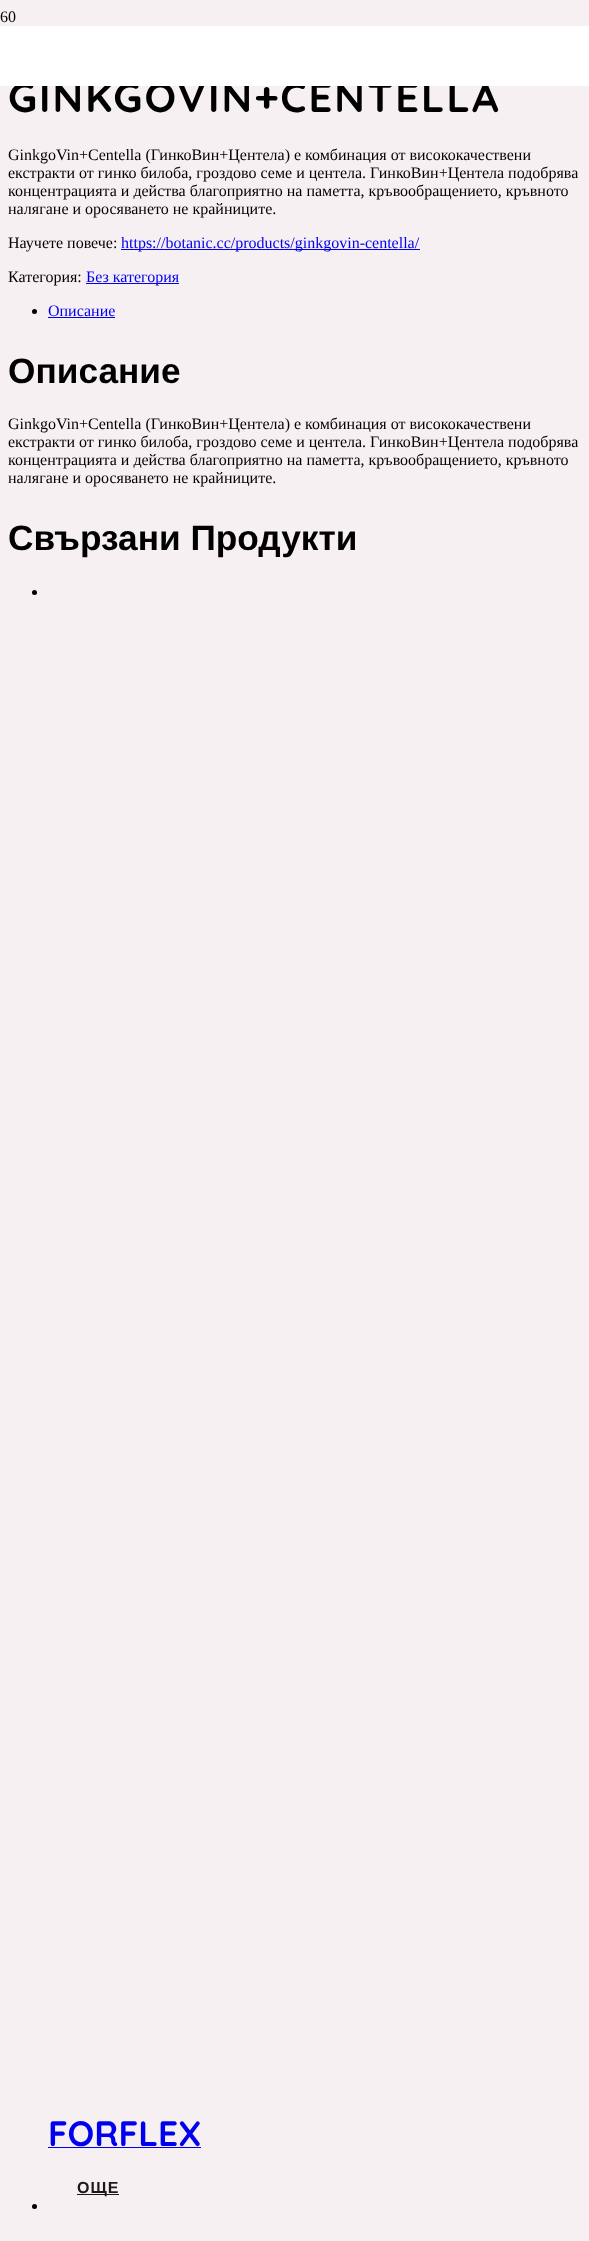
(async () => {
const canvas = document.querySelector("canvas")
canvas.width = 589
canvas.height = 2241
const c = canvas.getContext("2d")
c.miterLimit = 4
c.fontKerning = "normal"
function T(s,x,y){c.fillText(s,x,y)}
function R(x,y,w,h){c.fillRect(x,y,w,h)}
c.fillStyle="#f7f0f2"
R(0,0,589,2241)
c.font="16px Liberation Serif"
c.fillStyle="#000"
T("60",0,22)
c.letterSpacing="2.1px"
c.font="bold 41.6px Quicksand"
T("GINKGOVIN+CENTELLA",8,112)
c.fillStyle="#fff"
R(0,26,589,60)
c.letterSpacing="0px"
c.font="16px Liberation Serif"
c.fillStyle="#000"
T("GinkgoVin+Centella (ГинкоВин+Центела) е комбинация от висококачествени",8,160)
T("екстракти от гинко билоба, гроздово семе и центела. ГинкоВин+Центела подобрява",8,178)
T("концентрацията и действа благоприятно на паметта, кръвообращението, кръвното",8,196)
T("налягане и оросяването не крайниците.",8,214)
T("Научете повече:",8,248)
c.fillStyle="#00e"
R(121,249,299,1)
T("https://botanic.cc/products/ginkgovin-centella/",121,248)
c.fillStyle="#000"
T("Категория:",8,282)
c.fillStyle="#00e"
R(86,283,93,1)
T("Без категория",86,282)
c.fillStyle="#000"
c.beginPath()
c.arc(34.5,311.5,2.5,0,7)
c.fill()
c.fillStyle="#00e"
T("Описание",48,316)
R(48,317,67,1)
c.font="bold 35.25px Liberation Sans"
c.fillStyle="#000"
T("Описание",8,383)
c.font="16px Liberation Serif"
T("GinkgoVin+Centella (ГинкоВин+Центела) е комбинация от висококачествени",8,429)
T("екстракти от гинко билоба, гроздово семе и центела. ГинкоВин+Центела подобрява",8,447)
T("концентрацията и действа благоприятно на паметта, кръвообращението, кръвното",8,465)
T("налягане и оросяването не крайниците.",8,483)
c.font="bold 35.25px Liberation Sans"
T("Свързани Продукти",8,550)
c.beginPath()
c.arc(34.5,592.5,2.5,0,7)
c.fill()
c.font="bold 35.25px Quicksand"
c.fillStyle="#00e"
T("FORFLEX",48,2146)
R(48,2147,153,1)
c.fillStyle="#1a1a1a"
R(77,2194,42,1)
c.letterSpacing="1px"
c.font="bold 16px Liberation Sans"
T("ОЩЕ",77,2193)
c.fillStyle="#000"
c.beginPath()
c.arc(34.5,2206.5,2.5,0,7)
c.fill()
})()
